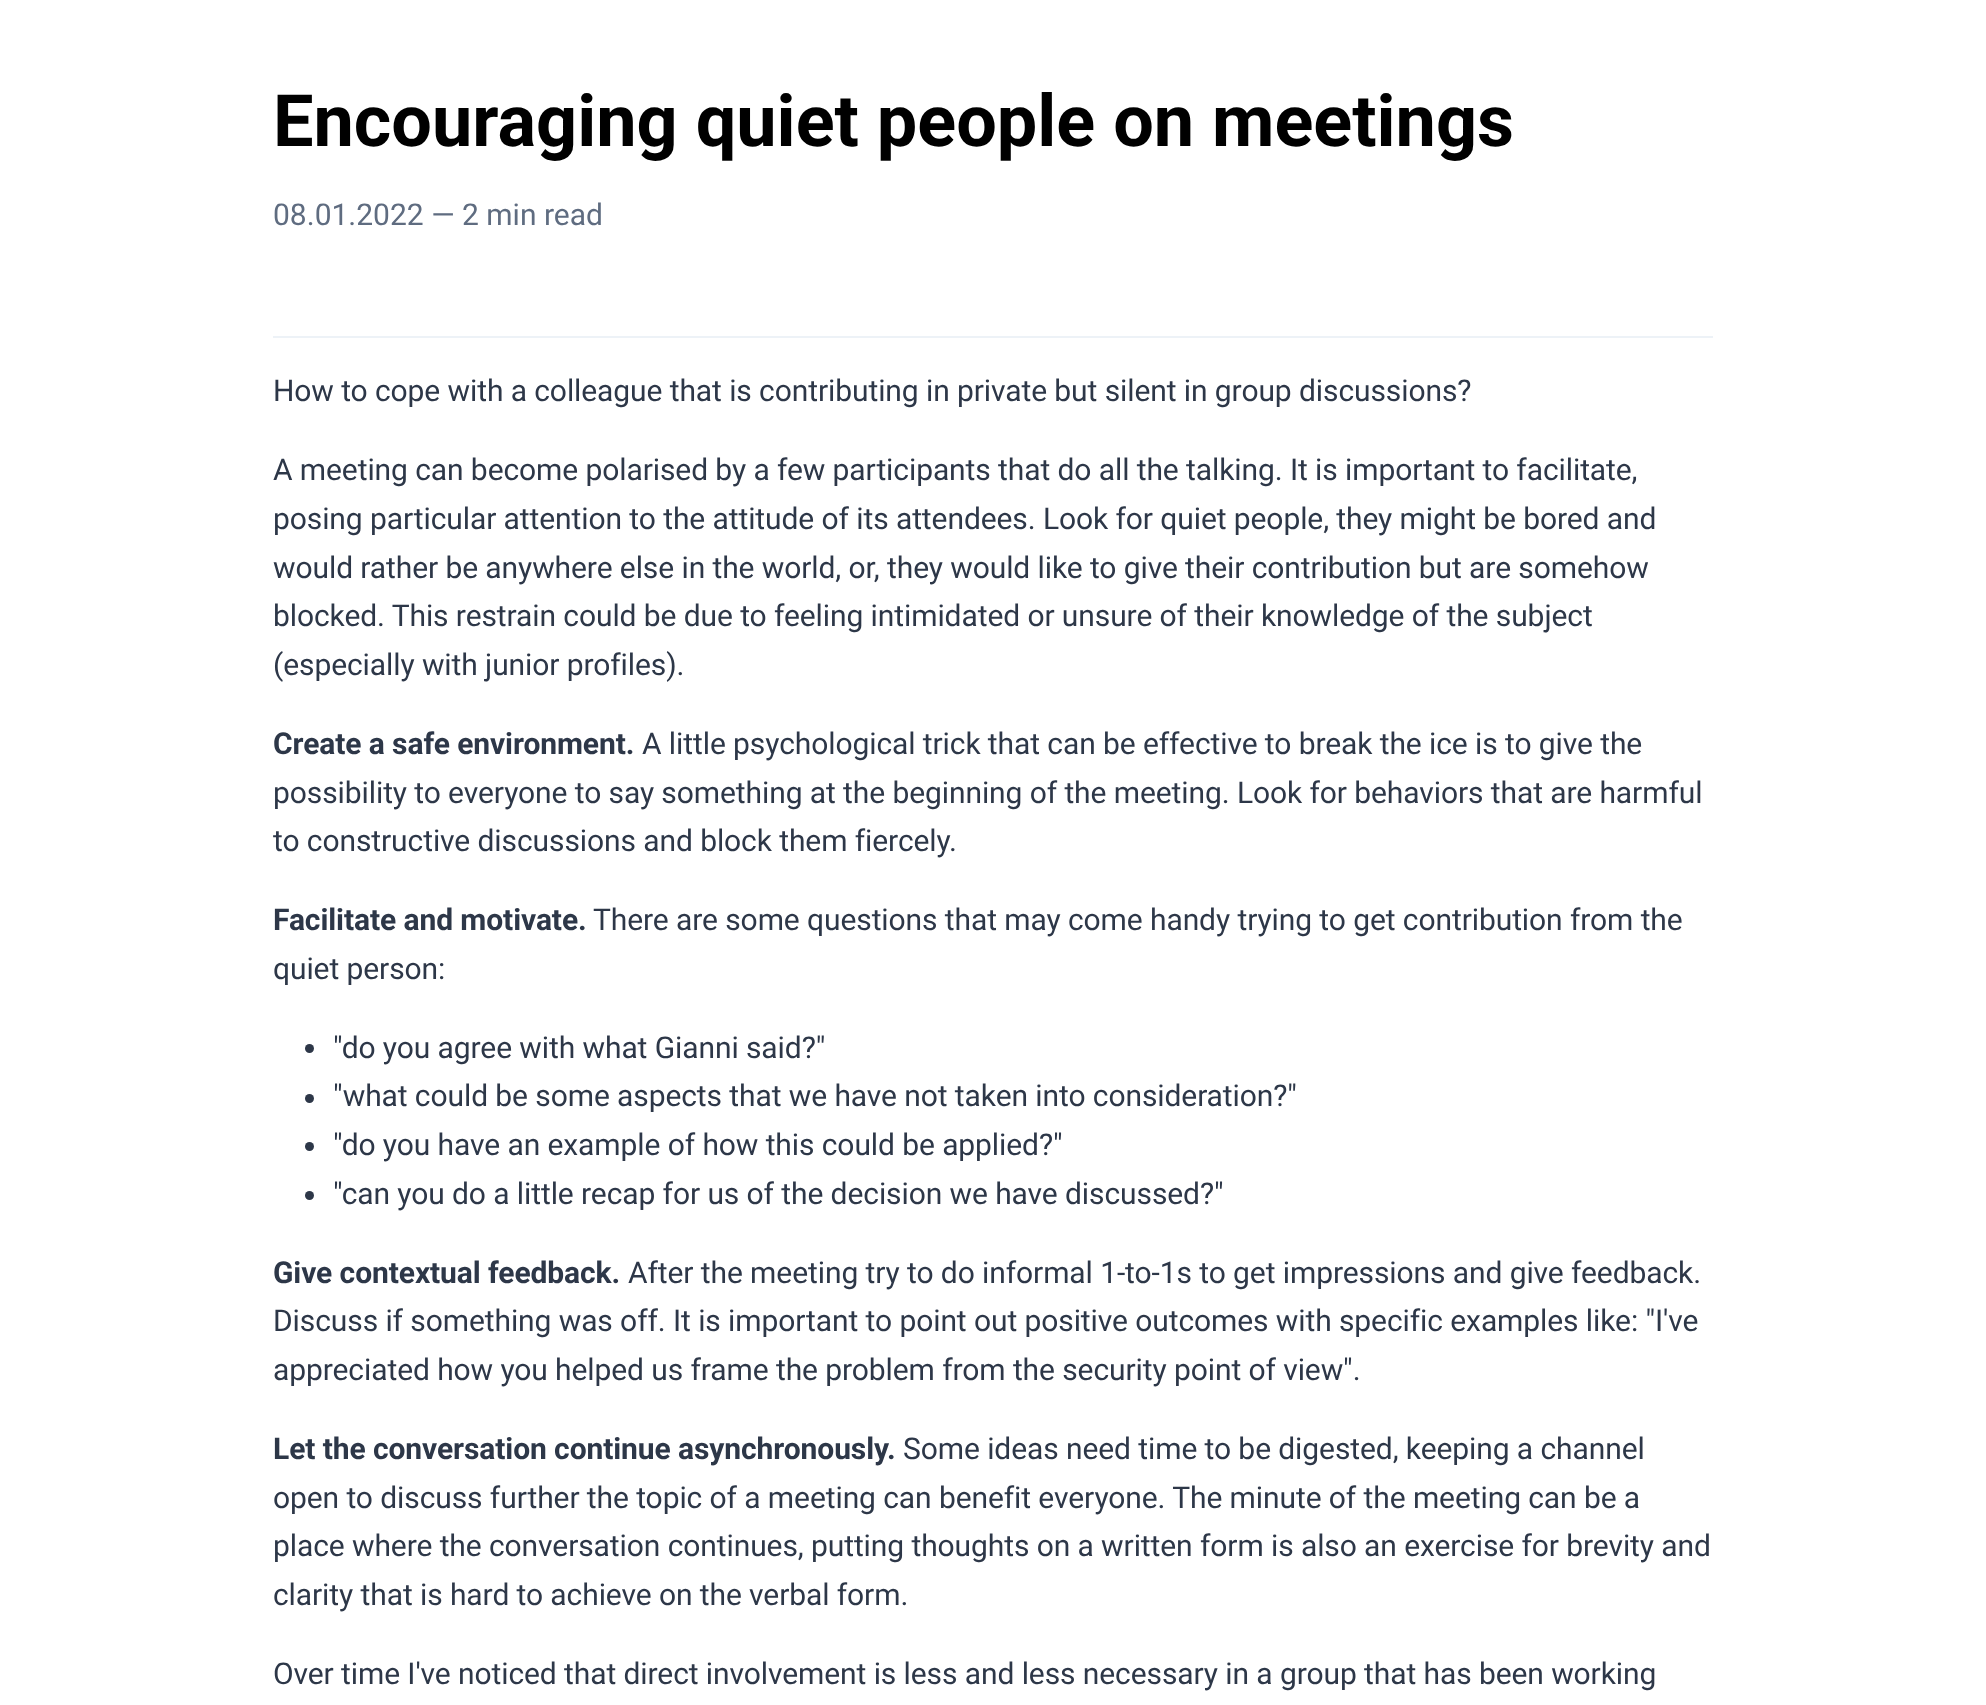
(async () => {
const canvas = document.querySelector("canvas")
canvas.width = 1986
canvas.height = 1705
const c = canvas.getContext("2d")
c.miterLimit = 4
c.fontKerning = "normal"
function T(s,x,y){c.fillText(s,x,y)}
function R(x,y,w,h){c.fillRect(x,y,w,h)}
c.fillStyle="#fff"
R(0,0,1986,1705)
c.font="bold 72px Roboto"
c.fillStyle="#000"
T("Encouraging quiet people on meetings",273,146)
c.font="30px Roboto"
c.fillStyle="#5f6c80"
T("08.01.2022 — 2 min read",273,225)
c.fillStyle="#edf2f7"
R(273,336,1440,2)
c.letterSpacing="-0.09px"
c.fillStyle="#2d3748"
T("How to cope with a colleague that is contributing in private but silent in group discussions?",273,401)
T("A meeting can become polarised by a few participants that do all the talking. It is important to facilitate,",273,480)
T("posing particular attention to the attitude of its attendees. Look for quiet people, they might be bored and",273,529)
T("would rather be anywhere else in the world, or, they would like to give their contribution but are somehow",273,578)
T("blocked. This restrain could be due to feeling intimidated or unsure of their knowledge of the subject",273,626)
T("(especially with junior profiles).",273,675)
c.font="bold 30px Roboto"
T("Create a safe environment.",273,754)
c.font="30px Roboto"
T("A little psychological trick that can be effective to break the ice is to give the",642,754)
T("possibility to everyone to say something at the beginning of the meeting. Look for behaviors that are harmful",273,803)
T("to constructive discussions and block them fiercely.",273,851)
c.font="bold 30px Roboto"
T("Facilitate and motivate.",273,930)
c.font="30px Roboto"
T("There are some questions that may come handy trying to get contribution from the",593,930)
T("quiet person:",273,979)
c.beginPath()
c.arc(309.5,1048.5,4.5,0,7)
c.fill()
T("\"do you agree with what Gianni said?\"",333,1058)
c.beginPath()
c.arc(309.5,1098.5,4.5,0,7)
c.fill()
T("\"what could be some aspects that we have not taken into consideration?\"",333,1106)
c.beginPath()
c.arc(309.5,1146.5,4.5,0,7)
c.fill()
T("\"do you have an example of how this could be applied?\"",333,1155)
c.beginPath()
c.arc(309.5,1195.5,4.5,0,7)
c.fill()
T("\"can you do a little recap for us of the decision we have discussed?\"",333,1204)
c.font="bold 30px Roboto"
T("Give contextual feedback.",273,1283)
c.font="30px Roboto"
T("After the meeting try to do informal 1-to-1s to get impressions and give feedback.",628,1283)
T("Discuss if something was off. It is important to point out positive outcomes with specific examples like: \"I've",273,1331)
T("appreciated how you helped us frame the problem from the security point of view\".",273,1380)
c.font="bold 30px Roboto"
T("Let the conversation continue asynchronously.",273,1459)
c.font="30px Roboto"
T("Some ideas need time to be digested, keeping a channel",903,1459)
T("open to discuss further the topic of a meeting can benefit everyone. The minute of the meeting can be a",273,1508)
T("place where the conversation continues, putting thoughts on a written form is also an exercise for brevity and",273,1556)
T("clarity that is hard to achieve on the verbal form.",273,1605)
T("Over time I've noticed that direct involvement is less and less necessary in a group that has been working",273,1684)
})()
